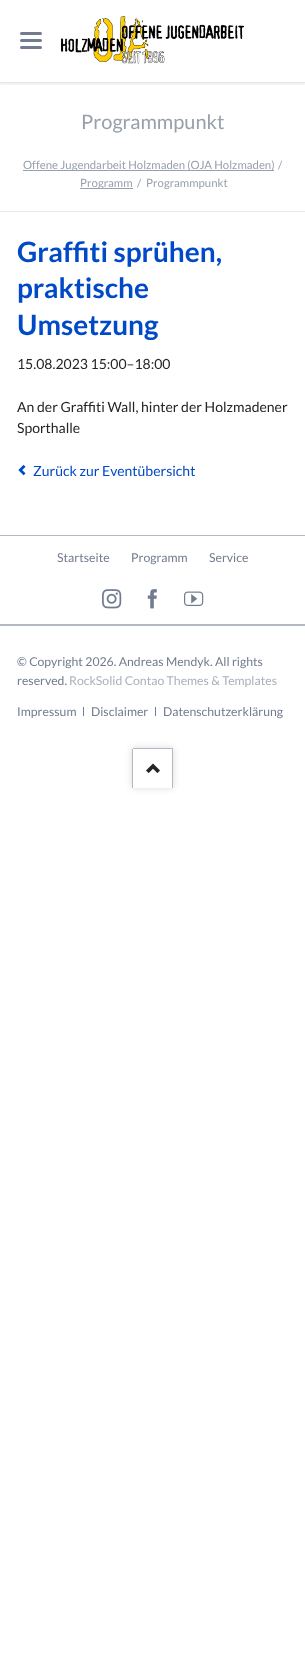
(async () => {
const canvas = document.querySelector("canvas")
canvas.width = 305
canvas.height = 1663
const c = canvas.getContext("2d")
c.miterLimit = 4
c.fontKerning = "normal"
function T(s,x,y){c.fillText(s,x,y)}
function R(x,y,w,h){c.fillRect(x,y,w,h)}
function Q(x,y,w,h,r){c.beginPath();c.roundRect(x,y,w,h,r);c.fill()}
async function I(src,x,y,w,h){const img=new Image();img.src=src;await img.decode();c.drawImage(img,x,y,w,h)}
c.fillStyle="#fff"
R(0,0,305,1663)
c.save()
c.beginPath()
c.rect(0,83,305,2)
c.clip()
c.fillStyle="#0000001a"
c.filter="blur(1px)"
c.beginPath()
c.rect(0,1,305,83)
c.fill()
c.filter="none"
c.restore()
c.fillStyle="#e5e8ee"
R(0,82,305,1)
await I("1.png",61,16,183,48)
c.fillStyle="#717c8e"
Q(20,46,22,3,1.5)
Q(20,39,22,3,1.5)
Q(20,32,22,3,1.5)
c.fillStyle="#e5e8ee"
R(0,211,305,1)
c.font="20px Lato"
c.fillStyle="#98a0ab"
T("Programmpunkt",81,129)
R(23,170,251,1)
c.font="11.4px Lato"
T("Offene Jugendarbeit Holzmaden (OJA Holzmaden)",23,169)
T("/",278,169)
R(80,188,53,1)
T("Programm",80,187)
T("/",137,187)
T("Programmpunkt",146,187)
c.font="bold 28px Lato"
c.fillStyle="#0049c7"
T("Graffiti sprühen,",17,262)
T("praktische",17,298)
T("Umsetzung",17,335)
c.font="14px Lato"
c.fillStyle="#242424"
T("15.08.2023 15:00–18:00",17,369)
T("An der Graffiti Wall, hinter der Holzmadener",17,412)
T("Sporthalle",17,433)
await I("2.png",18,464,8,12)
c.fillStyle="#0049c7"
T("Zurück zur Eventübersicht",33,476)
c.fillStyle="#b2b9c4"
R(0,535,305,1)
R(0,624,305,2)
c.font="12.25px Lato"
c.fillStyle="#717c8e"
T("Startseite",57,562)
T("Programm",131,562)
T("Service",209,562)
await I("3.png",102,589,20,20)
await I("4.png",147,589,10,20)
await I("5.png",184,591,20,15)
T("© Copyright 2026. Andreas Mendyk. All rights",17,666)
T("reserved.",17,685)
c.fillStyle="#aab0bb"
T("RockSolid Contao Themes & Templates",69,685)
c.fillStyle="#717c8e"
T("Impressum",17,716)
R(83,707,1,9)
T("Disclaimer",91,716)
R(155,707,1,9)
T("Datenschutzerklärung",163,716)
c.fillStyle="#00000026"
c.filter="blur(3.5px)"
c.beginPath()
c.roundRect(132,748,41,40,1)
c.fill()
c.filter="none"
c.fillStyle="#fff"
c.beginPath()
c.roundRect(132,748,41,40,[1,1,0,0])
c.fill()
c.fillStyle="#b2b9c4"
R(133,748,40,1)
R(172,749,1,39)
R(132,749,1,39)
await I("6.png",146,763,14,10)
})()
